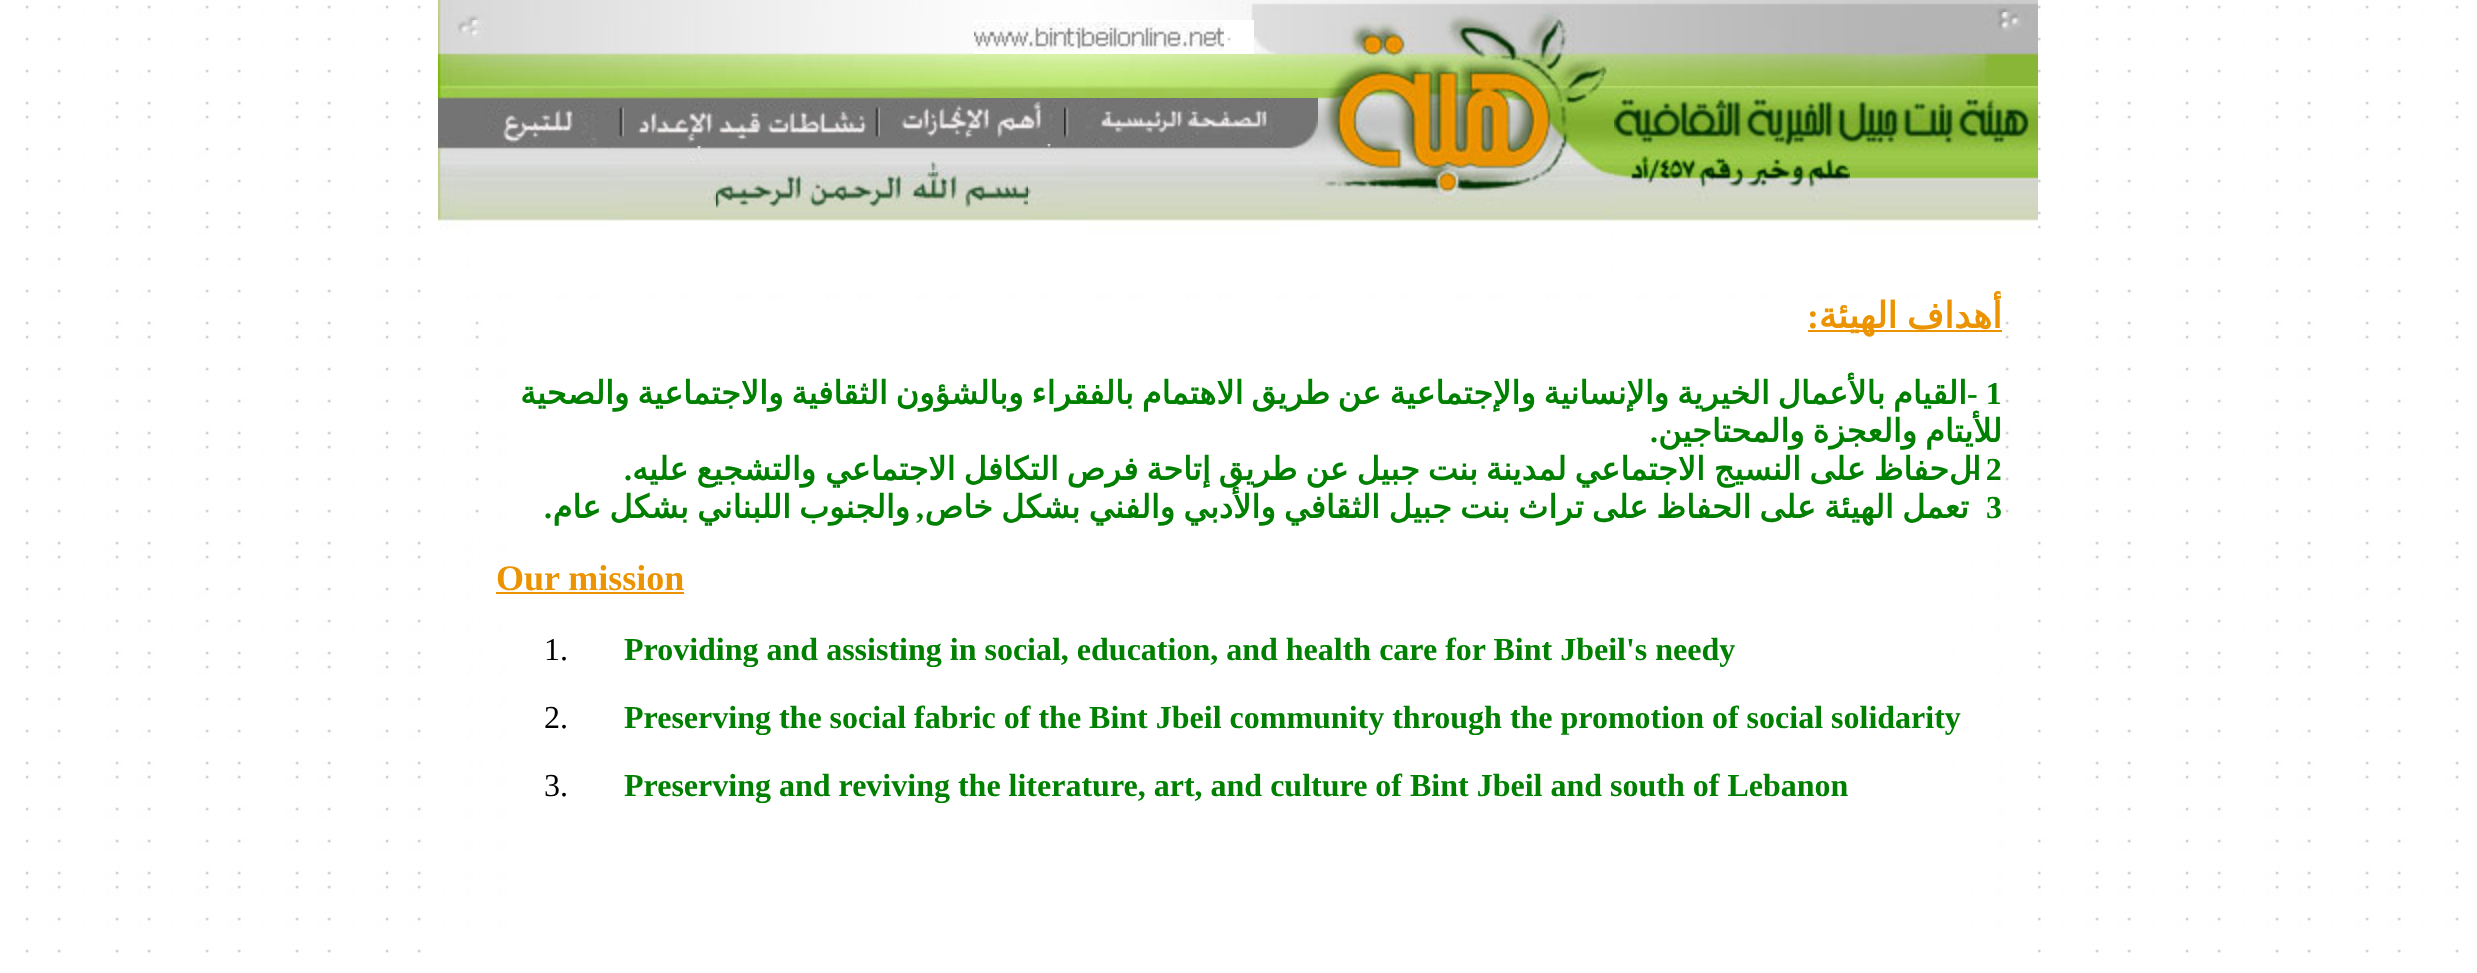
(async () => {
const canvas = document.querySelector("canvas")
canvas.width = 2477
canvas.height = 973
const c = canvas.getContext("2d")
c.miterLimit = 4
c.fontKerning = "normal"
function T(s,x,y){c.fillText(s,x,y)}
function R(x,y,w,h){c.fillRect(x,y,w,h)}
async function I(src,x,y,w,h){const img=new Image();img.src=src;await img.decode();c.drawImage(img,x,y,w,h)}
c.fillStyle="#fff"
R(0,0,2477,973)
await I("1.png",25,5,2434,948)
await I("2.png",438,0,1600,12)
await I("3.png",1604,12,434,74)
await I("4.png",1318,12,286,196)
await I("5.png",438,12,880,8)
await I("6.png",1254,20,64,78)
await I("7.png",974,22,250,30)
await I("8.png",438,20,536,80)
await I("9.png",974,54,280,44)
await I("10.png",1614,86,424,68)
await I("11.png",1604,86,10,137)
await I("12.png",1282,98,36,195)
await I("13.png",1086,98,196,56)
c.fillStyle="#747474"
R(974,98,112,2)
await I("14.png",1064,100,22,121)
await I("15.png",880,100,184,44)
R(438,100,442,2)
await I("16.png",880,144,184,28)
await I("17.png",872,102,8,70)
await I("18.png",624,102,248,44)
await I("19.png",606,102,18,121)
await I("20.png",470,102,136,44)
await I("21.png",438,102,32,128)
await I("22.png",1850,154,188,139)
await I("23.png",1614,154,236,54)
await I("24.png",1086,154,196,139)
await I("25.png",624,146,248,26)
await I("26.png",470,146,136,147)
await I("27.png",1028,172,36,121)
await I("28.png",716,172,312,36)
await I("29.png",624,172,92,121)
await I("30.png",1614,208,236,85)
await I("31.png",1318,208,286,85)
await I("32.png",716,208,312,85)
c.fillStyle="#fff"
R(2005,541,33,412)
R(507,321,1444,632)
c.direction="rtl"
c.font="bold 36px DejaVu Sans"
c.fillStyle="#eb9300"
T("أ",2002,328)
R(1808,330,194,2)
c.wordSpacing="-2px"
T("هداف الهيئة",1992,328)
c.wordSpacing="0px"
c.font="bold 36px Liberation Serif"
T(":",1819,328)
c.direction="ltr"
c.font="bold 32px Liberation Serif"
c.fillStyle="#008000"
T("- 1",1967,404)
c.wordSpacing="-2.25px"
c.direction="rtl"
c.font="bold 32px DejaVu Sans"
T("القيام بالأعمال الخيرية والإنسانية والإجتماعية",1967,404)
c.wordSpacing="0px"
T("عن",1381,404)
c.wordSpacing="-2.25px"
T("طريق الاهتمام بالفقراء وبالشؤون الثقافية والاجتماعية والصحية",1330,404)
c.wordSpacing="0px"
T("للأيتام",2002,442)
c.wordSpacing="-2.25px"
T("والعجزة والمحتاجين",1917,442)
c.wordSpacing="0px"
c.font="bold 32px Liberation Serif"
T(".",1658,442)
c.direction="ltr"
T("- 2",1967,480)
c.direction="rtl"
c.font="bold 32px DejaVu Sans"
T("ال",1981,480)
c.wordSpacing="-2px"
T("حفاظ على النسيج",1949,480)
c.wordSpacing="-2.25px"
T("الاجتماعي لمدينة بنت جبيل عن طريق إتاحة فرص التكافل الاجتماعي",1705,480)
T("والتشجيع عليه",816,480)
c.wordSpacing="0px"
c.font="bold 32px Liberation Serif"
T(".",632,480)
c.direction="ltr"
T("3",1986,518)
c.wordSpacing="-2px"
c.direction="rtl"
c.font="bold 32px DejaVu Sans"
T("تعمل الهيئة على الحفاظ على تراث بنت جبيل",1969,518)
T("الثقافي والأدبي والفني بشكل خاص",1380,518)
c.wordSpacing="0px"
c.font="bold 32px Liberation Serif"
T(",",924,518)
c.wordSpacing="-2px"
c.font="bold 32px DejaVu Sans"
T("والجنوب اللبناني بشكل عام",910,518)
c.wordSpacing="0px"
c.font="bold 32px Liberation Serif"
T(".",552,518)
c.direction="ltr"
c.font="bold 36px Liberation Serif"
c.fillStyle="#eb9300"
T("Our mission",496,590)
R(496,592,188,2)
c.font="bold 32px Liberation Serif"
c.fillStyle="#008000"
T("Providing and assisting in social, education, and health care for Bint Jbeil's needy",624,660)
c.font="32px Liberation Serif"
c.fillStyle="#000"
T("1.",544,660)
c.font="bold 32px Liberation Serif"
c.fillStyle="#008000"
T("Preserving the social fabric of the Bint Jbeil community through the promotion of social solidarity",624,728)
c.font="32px Liberation Serif"
c.fillStyle="#000"
T("2.",544,728)
c.font="bold 32px Liberation Serif"
c.fillStyle="#008000"
T("Preserving and reviving the literature, art, and culture of Bint Jbeil and south of Lebanon",624,796)
c.font="32px Liberation Serif"
c.fillStyle="#000"
T("3.",544,796)
c.fillStyle="#fff"
R(475,541,4,412)
})()
